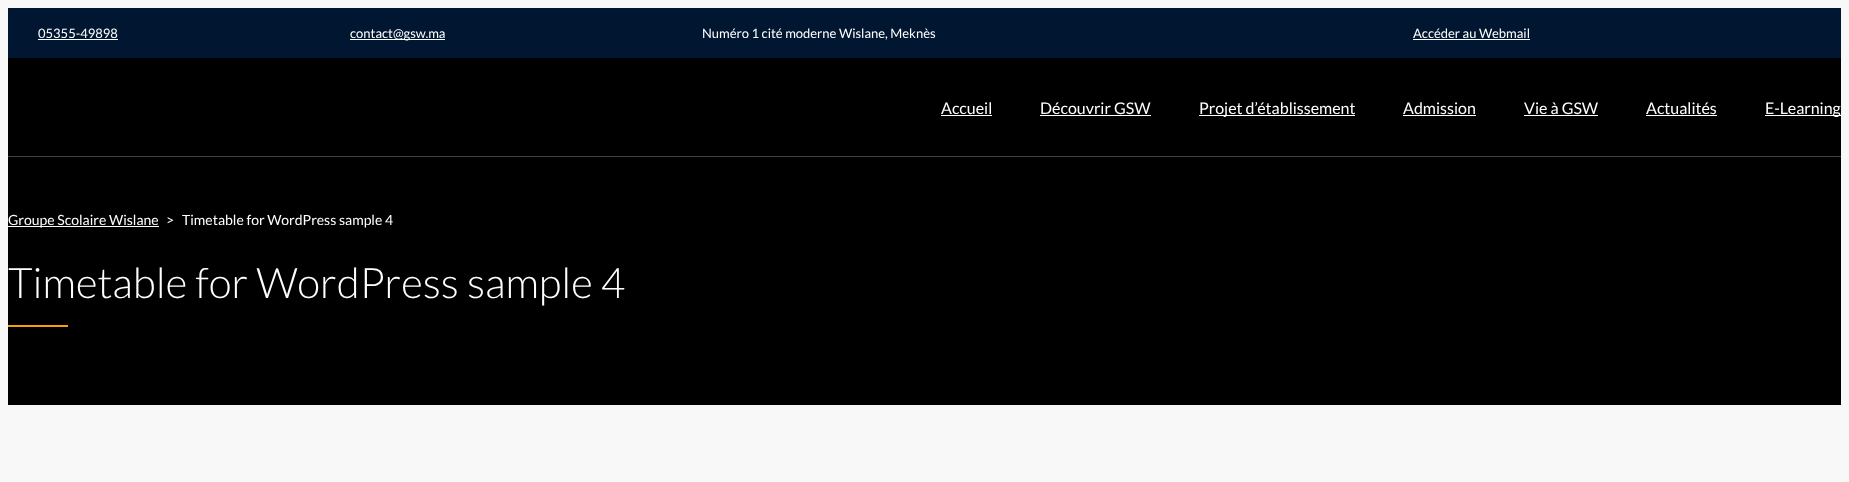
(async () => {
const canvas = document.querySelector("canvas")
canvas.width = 1849
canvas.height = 482
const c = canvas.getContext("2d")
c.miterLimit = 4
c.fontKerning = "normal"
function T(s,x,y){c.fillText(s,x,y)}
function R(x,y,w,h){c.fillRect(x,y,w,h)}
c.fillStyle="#f8f8f8"
R(0,0,1849,482)
c.fillStyle="#011731"
R(8,8,1833,50)
c.font="13px Lato"
c.fillStyle="#fff"
T("05355-49898",38,38)
R(38,39,80,1)
R(350,39,95,1)
T("contact@gsw.ma",350,38)
T("Numéro 1 cité moderne Wislane, Meknès",702,38)
T("Accéder au Webmail",1413,38)
R(1413,39,117,1)
c.fillStyle="#000"
R(8,58,1833,347)
c.font="16px Lato"
c.fillStyle="#fff"
T("Accueil",941,114)
R(941,115,51,1)
T("Découvrir GSW",1040,114)
R(1040,115,111,1)
R(1199,115,156,1)
T("Projet d’établissement",1199,114)
T("Admission",1403,114)
R(1403,115,73,1)
T("Vie à GSW",1524,114)
R(1524,115,74,1)
T("Actualités",1646,114)
R(1646,115,71,1)
R(1765,115,76,1)
T("E-Learning",1765,114)
c.fillStyle="#404040"
R(8,156,1833,1)
c.fillStyle="#fff"
R(8,226,151,1)
c.font="14px Lato"
T("Groupe Scolaire Wislane",8,225)
T(">",166,225)
T("Timetable for WordPress sample 4",182,225)
c.font="300 42px Lato"
T("Timetable for WordPress sample 4",8,298)
c.fillStyle="#faa006"
R(8,325,60,2)
})()
